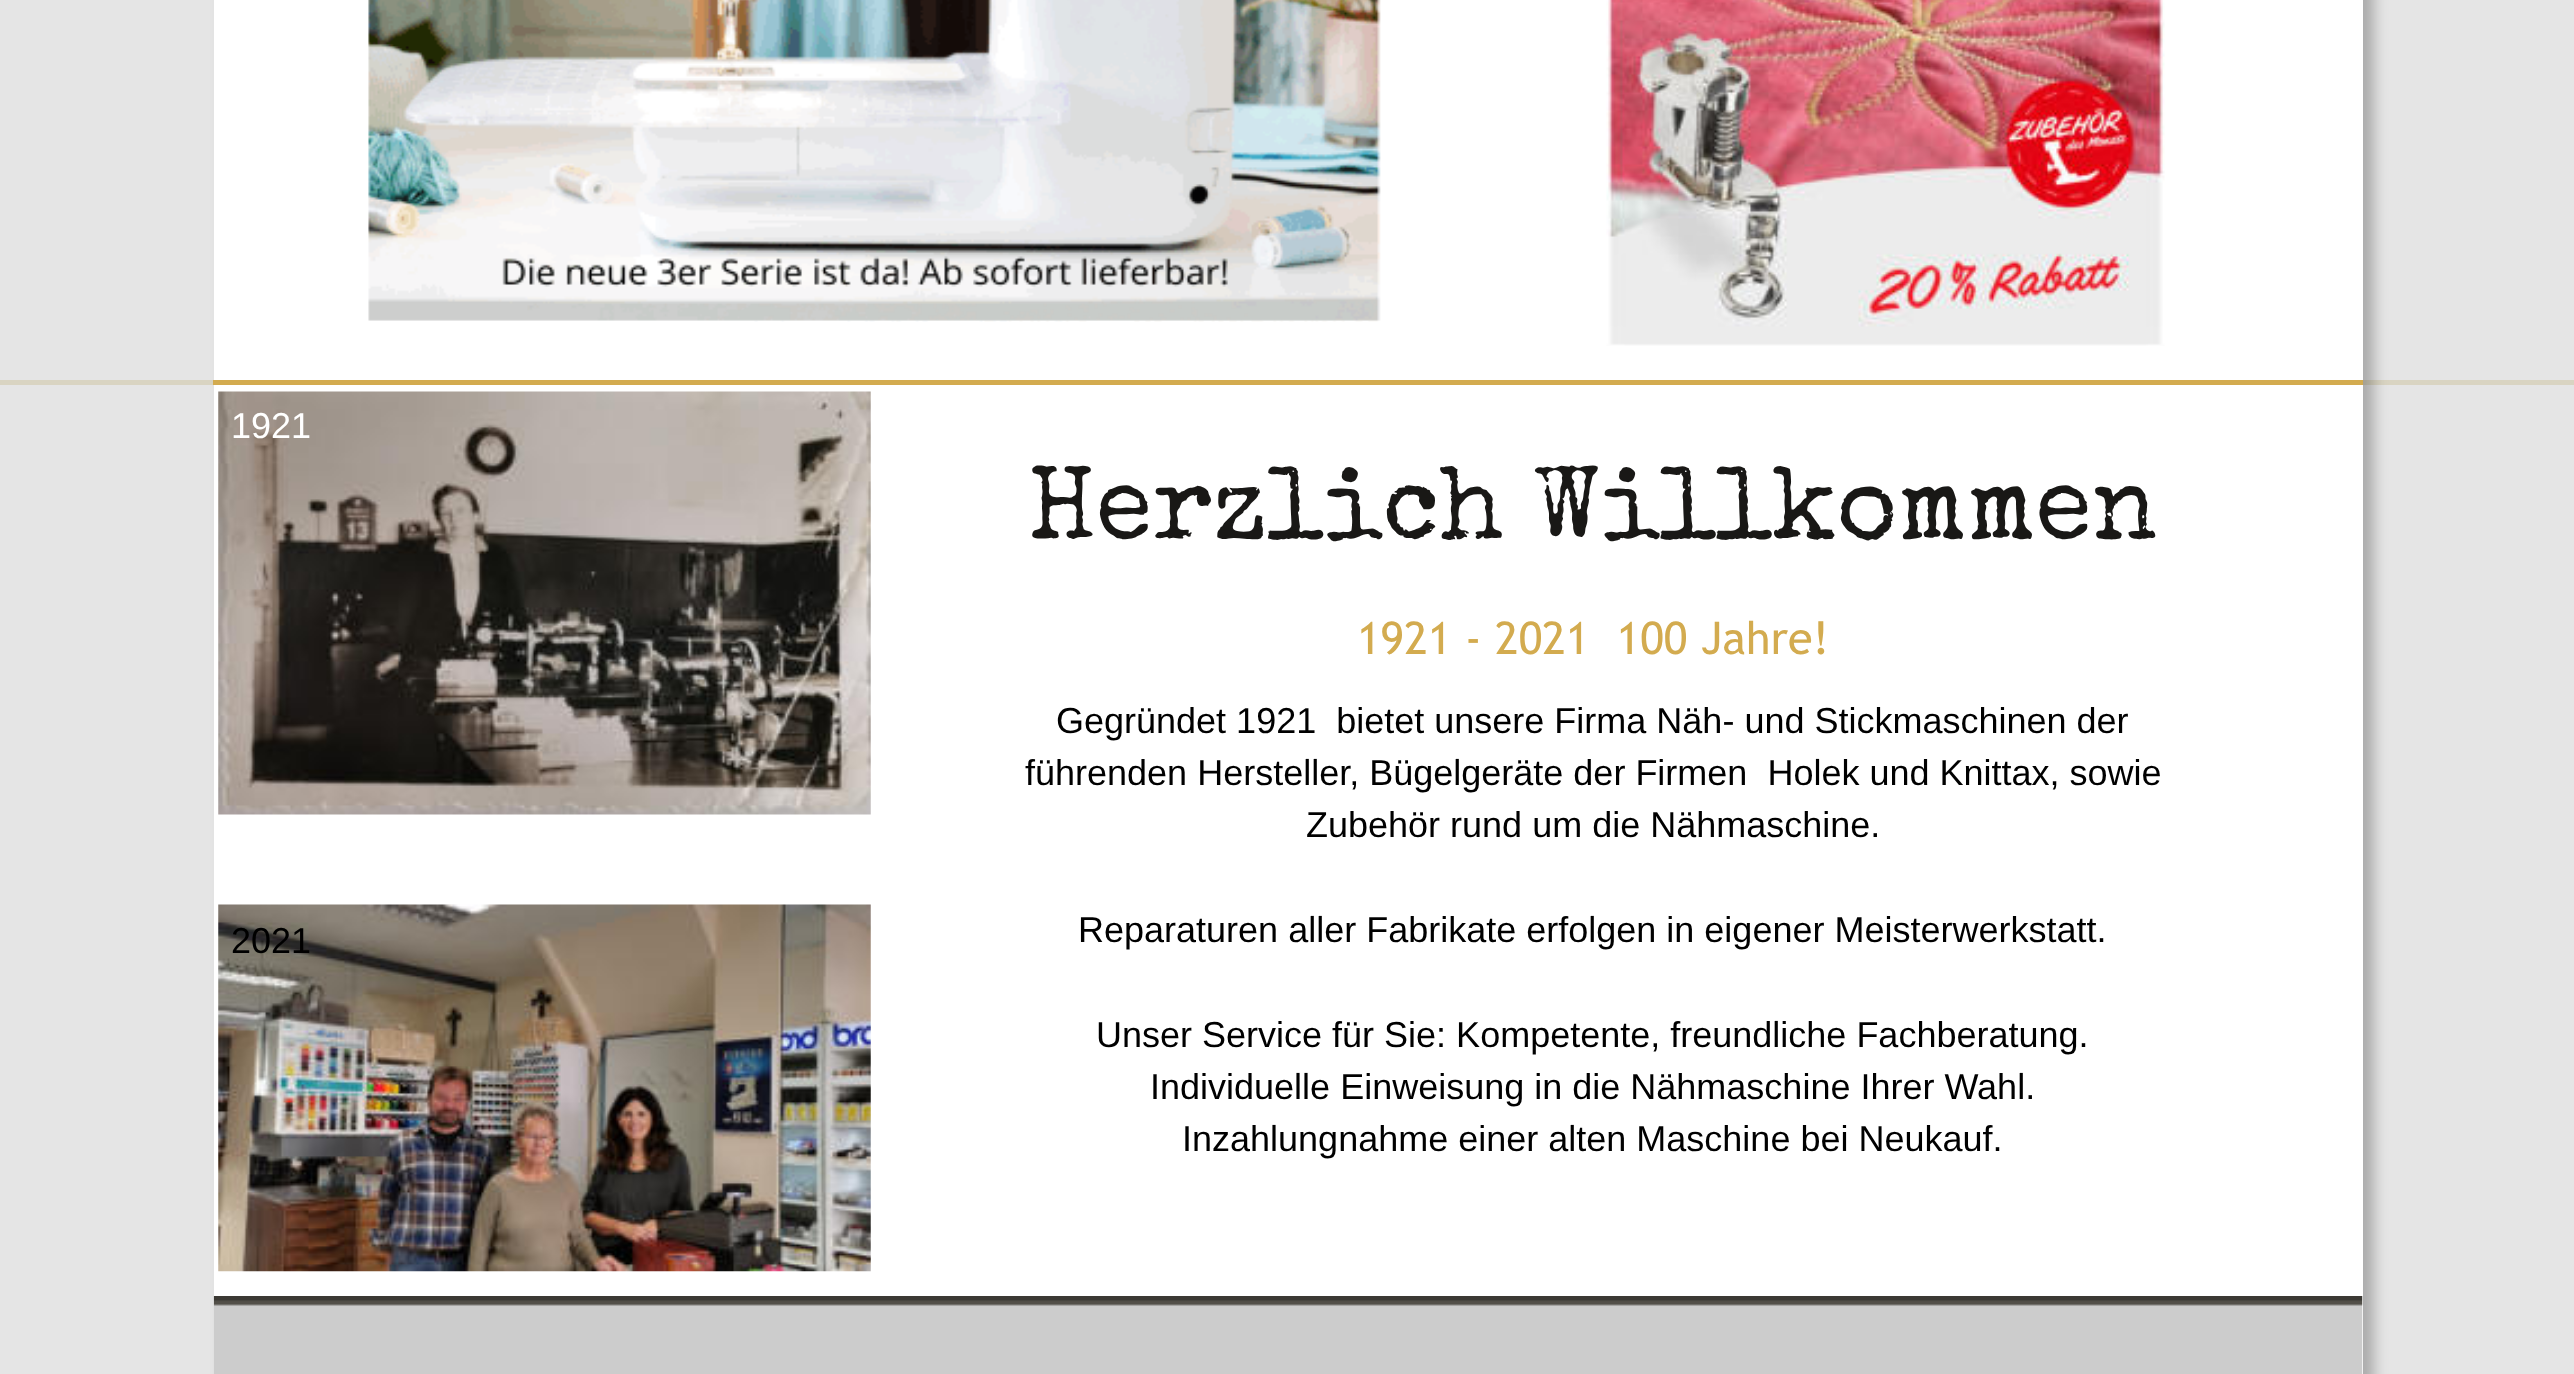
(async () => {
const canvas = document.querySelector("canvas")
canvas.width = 2574
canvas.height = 1374
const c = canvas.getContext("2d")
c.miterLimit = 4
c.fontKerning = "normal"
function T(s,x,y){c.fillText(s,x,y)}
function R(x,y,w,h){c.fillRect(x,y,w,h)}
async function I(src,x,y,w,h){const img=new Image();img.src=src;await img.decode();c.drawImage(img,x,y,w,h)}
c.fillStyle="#e5e5e5"
R(0,0,2574,1374)
c.fillStyle="#d9d4c2"
R(0,380,2574,5)
c.fillStyle="#00000040"
c.filter="blur(7px)"
c.beginPath()
c.rect(225,-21,2149,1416)
c.fill()
c.filter="none"
c.fillStyle="#fff"
R(214,0,2149,1374)
await I("1.png",368,0,1013,322)
await I("2.png",1606,0,559,346)
c.fillStyle="#d3ab4f"
R(213,380,2150,5)
await I("3.png",218,391,653,424)
c.font="36px Liberation Sans"
c.fillStyle="#fff"
T("1921",231,438)
await I("4.png",218,904,653,368)
c.font="103.9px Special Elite"
c.fillStyle="#191816"
T("Herzlich Willkommen",1028,537)
c.font="45px Trebuchet MS"
c.fillStyle="#d3ab4f"
T("1921 - 2021  100 Jahre!",1357,654)
c.font="36px Liberation Sans"
c.fillStyle="#000"
T("Gegründet 1921  bietet unsere Firma Näh- und Stickmaschinen der",1056,733)
T("führenden Hersteller, Bügelgeräte der Firmen  Holek und Knittax, sowie",1025,785)
T("Zubehör rund um die Nähmaschine.",1306,837)
T("Reparaturen aller Fabrikate erfolgen in eigener Meisterwerkstatt.",1078,942)
T("Unser Service für Sie: Kompetente, freundliche Fachberatung.",1096,1047)
T("Individuelle Einweisung in die Nähmaschine Ihrer Wahl.",1150,1099)
T("Inzahlungnahme einer alten Maschine bei Neukauf.",1182,1151)
T("2021",231,953)
await I("5.png",213,1296,2150,78)
})()
